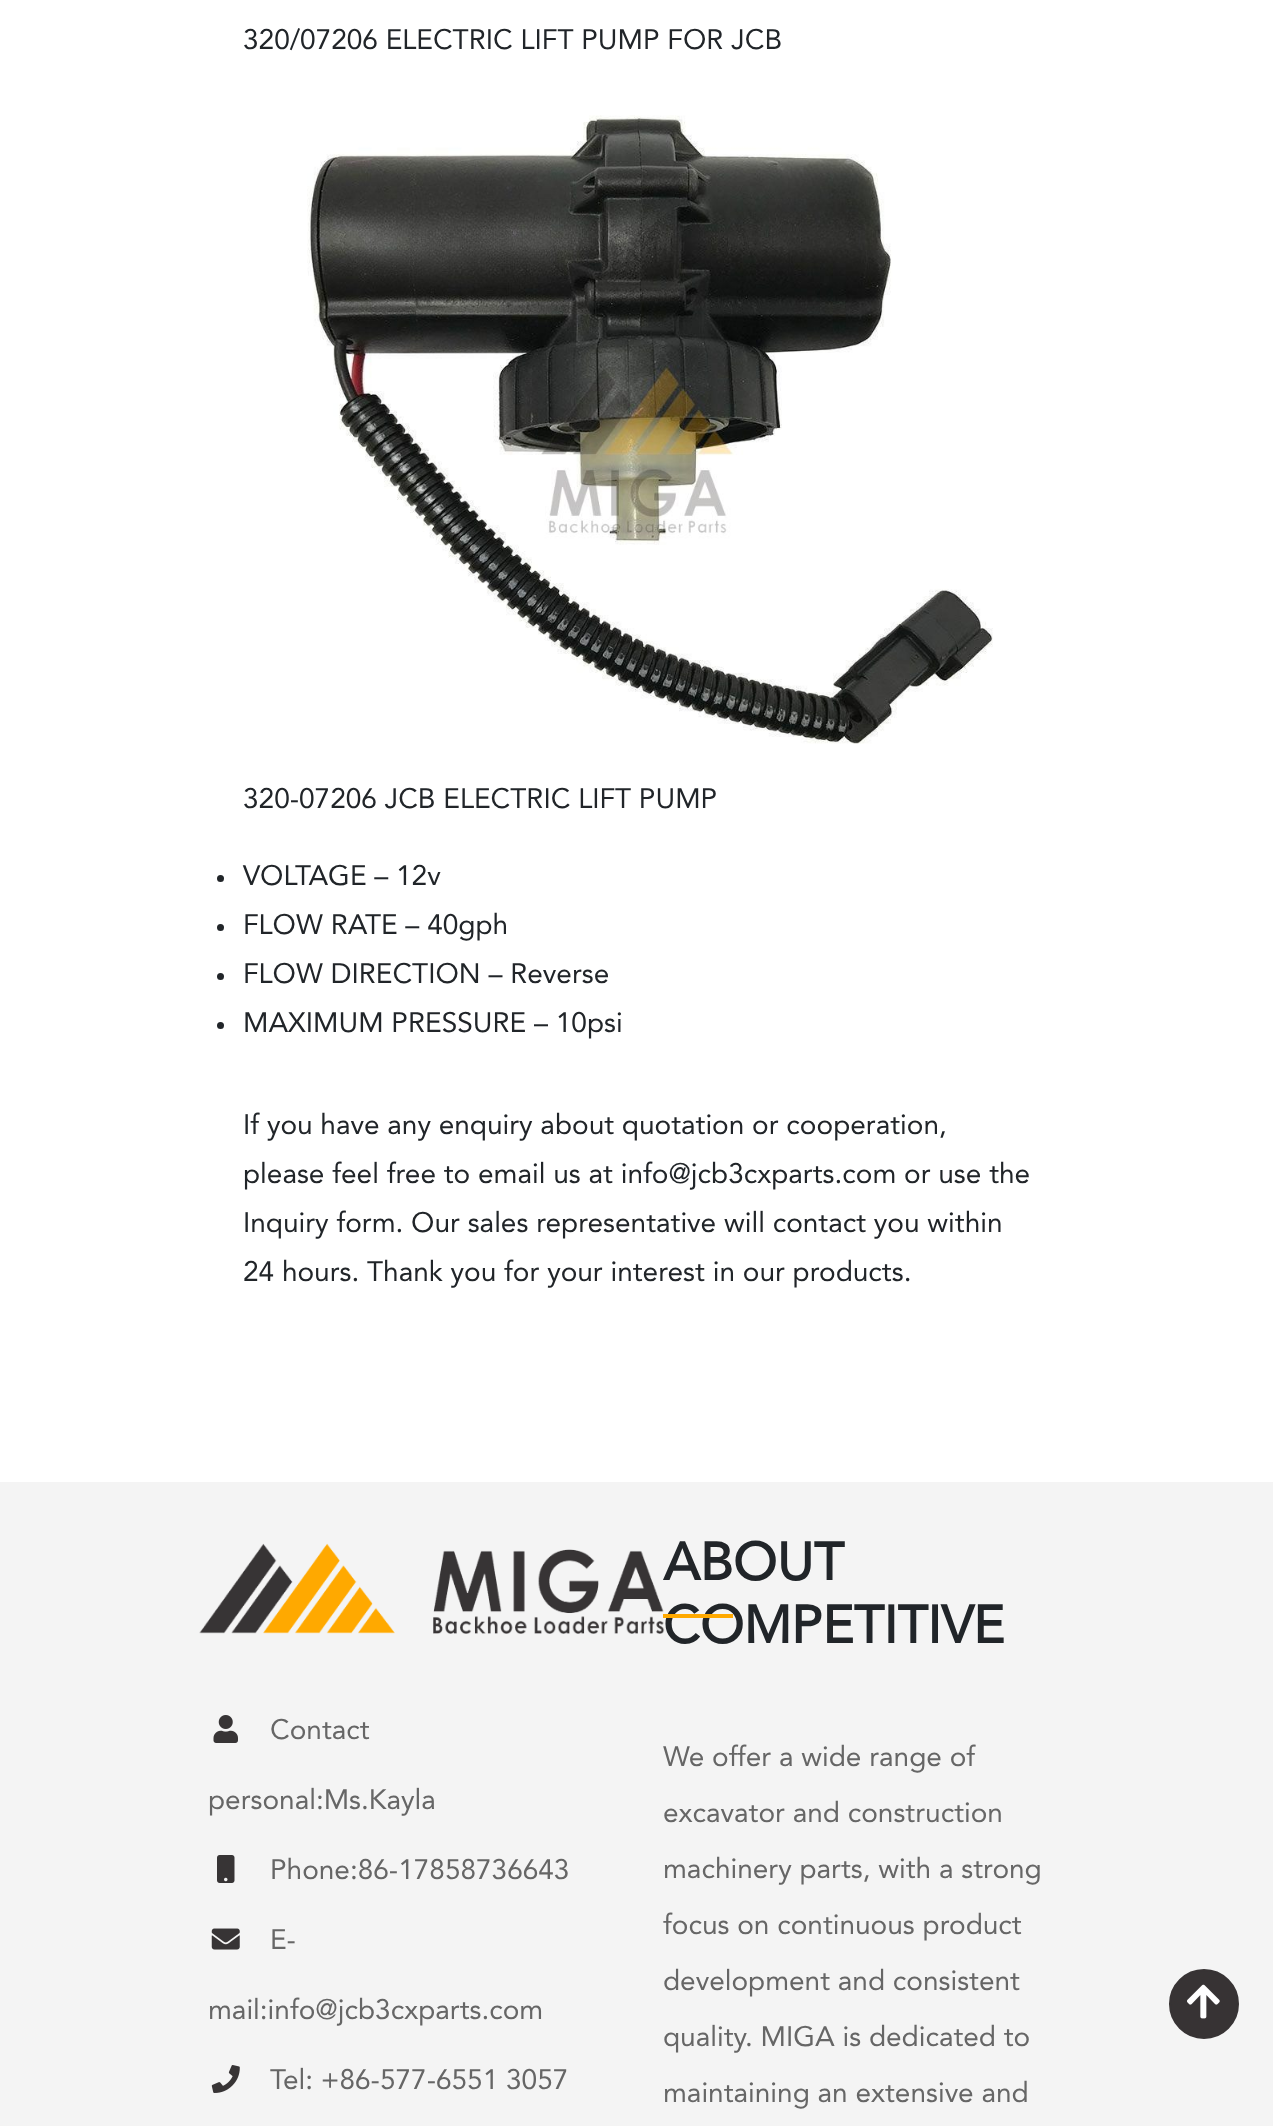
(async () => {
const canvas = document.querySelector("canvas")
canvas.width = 1273
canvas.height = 2126
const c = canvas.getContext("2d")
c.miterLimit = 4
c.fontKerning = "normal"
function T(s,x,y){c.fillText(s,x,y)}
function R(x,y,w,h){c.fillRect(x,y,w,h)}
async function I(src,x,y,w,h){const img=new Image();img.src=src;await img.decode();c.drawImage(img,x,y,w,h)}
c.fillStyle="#fff"
R(0,0,1273,2126)
c.font="28px Avenir"
c.fillStyle="#212529"
T("320/07206 ELECTRIC LIFT PUMP FOR JCB",243,49)
await I("1.png",307,115,686,629)
T("320-07206 JCB ELECTRIC LIFT PUMP",243,808)
c.beginPath()
c.arc(220.5,878.5,3.5,0,7)
c.fill()
T("VOLTAGE – 12v",243,885)
c.beginPath()
c.arc(220.5,927.5,3.5,0,7)
c.fill()
T("FLOW RATE – 40gph",243,934)
c.beginPath()
c.arc(220.5,976.5,3.5,0,7)
c.fill()
T("FLOW DIRECTION – Reverse",243,983)
c.beginPath()
c.arc(220.5,1025.5,3.5,0,7)
c.fill()
T("MAXIMUM PRESSURE – 10psi",243,1032)
T("If you have any enquiry about quotation or cooperation,",243,1134)
T("please feel free to email us at info@jcb3cxparts.com or use the",243,1183)
T("Inquiry form. Our sales representative will contact you within",243,1232)
T("24 hours. Thank you for your interest in our products.",243,1281)
c.fillStyle="#f4f4f4"
R(0,1482,1273,644)
await I("2.png",199,1543,466,91)
await I("3.png",213,1715,25,28)
c.fillStyle="#666"
T("Contact",270,1739)
T("personal:Ms.Kayla",208,1809)
await I("4.png",217,1855,18,28)
T("Phone:86-17858736643",270,1879)
await I("5.png",211,1928,29,22)
T("E-",270,1949)
T("mail:info@jcb3cxparts.com",208,2019)
await I("6.png",211,2065,29,28)
T("Tel: +86-577-6551 3057",270,2089)
c.font="bold 52.5px Avenir"
c.fillStyle="#212529"
T("ABOUT",663,1580)
T("COMPETITIVE",663,1643)
c.fillStyle="#ffa900"
R(663,1614,70,4)
c.font="28px Avenir"
c.fillStyle="#666"
T("We offer a wide range of",663,1766)
T("excavator and construction",663,1822)
T("machinery parts, with a strong",663,1878)
T("focus on continuous product",663,1934)
T("development and consistent",663,1990)
T("quality. MIGA is dedicated to",663,2046)
T("maintaining an extensive and",663,2102)
c.fillStyle="#373334"
c.beginPath()
c.arc(1204,2004,34,0,7)
c.fill()
c.strokeStyle="#373334"
c.lineWidth=2
c.stroke()
await I("7.png",1187,1984,33,35)
})()
